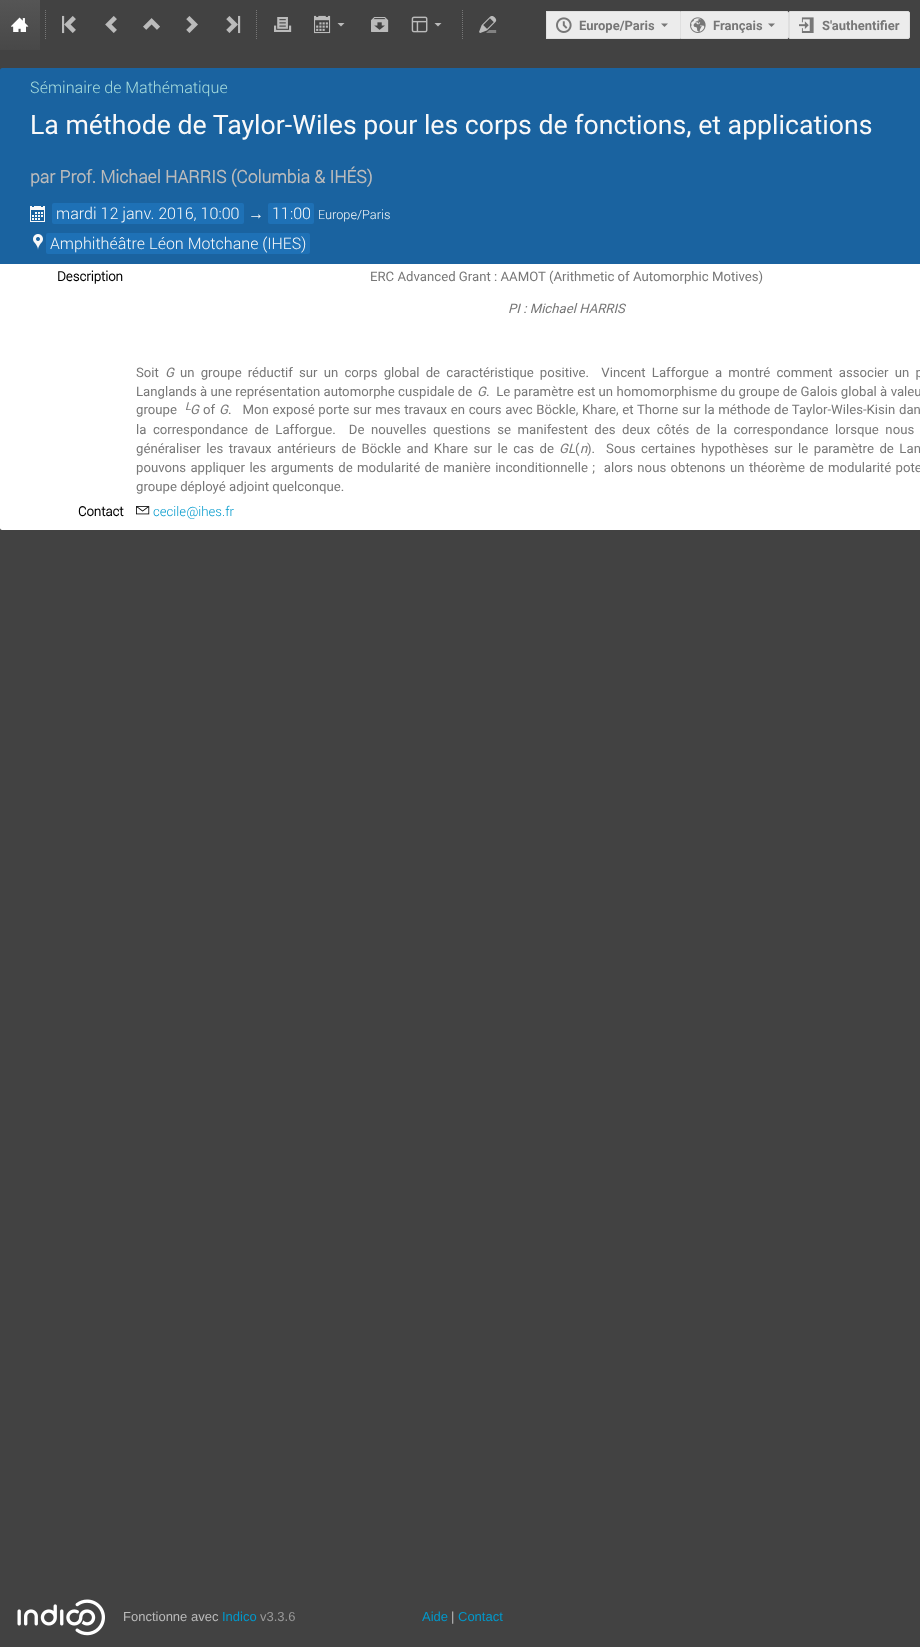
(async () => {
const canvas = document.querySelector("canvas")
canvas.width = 920
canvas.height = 1647
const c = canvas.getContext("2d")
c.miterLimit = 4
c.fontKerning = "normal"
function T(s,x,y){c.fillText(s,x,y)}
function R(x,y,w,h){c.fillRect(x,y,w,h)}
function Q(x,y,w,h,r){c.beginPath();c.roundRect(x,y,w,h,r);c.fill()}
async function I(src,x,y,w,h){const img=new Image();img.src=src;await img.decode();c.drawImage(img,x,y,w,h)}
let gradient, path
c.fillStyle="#424242"
R(0,0,920,1647)
gradient = c.createLinearGradient(20,0,20,50)
gradient.addColorStop(0,"#555")
gradient.addColorStop(1,"#484848")
c.fillStyle = gradient
R(0,0,40,50)
await I("1.png",11,17,18,15)
path = new Path2D("M45.5 10v30")
c.strokeStyle="#777"
c.setLineDash([1,1])
c.stroke(path)
await I("2.png",62,15,14,19)
await I("3.png",105,16,12,17)
await I("4.png",143,18,17,12)
await I("5.png",186,16,12,17)
await I("6.png",226,15,15,19)
path = new Path2D("M256.5 10v30")
c.stroke(path)
await I("7.png",274,17,18,15)
await I("8.png",314,15,17,19)
c.fillStyle="#bbb"
path = new Path2D("M337.5 23l3.5 3.5l3.5-3.5z")
c.fill(path)
await I("9.png",371,17,18,15)
await I("10.png",411,16,17,17)
path = new Path2D("M434.5 23l3.5 3.5l3.5-3.5z")
c.fill(path)
path = new Path2D("M462.5 10v30")
c.stroke(path)
await I("11.png",479,16,18,17)
c.fillStyle="#ececec"
R(547,12,133,26)
c.fillStyle="#dfdfdf"
R(546,11,134,1)
R(546,38,134,1)
R(546,11,1,28)
await I("12.png",556,17,16,16)
c.font="bold 13px 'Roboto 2'"
c.fillStyle="#777"
T("Europe/Paris",579,30)
path = new Path2D("M661 23.5l3.5 3.5l3.5-3.5z")
c.fill(path)
c.fillStyle="#ececec"
c.beginPath()
c.roundRect(680.5,11.5,108,27,[0,1.5,1.5,0])
c.fill()
c.strokeStyle="#dfdfdf"
c.setLineDash([])
c.stroke()
await I("13.png",690,17,16,16)
c.fillStyle="#777"
T("Français",713,30)
path = new Path2D("M768 23.5l3.5 3.5l3.5-3.5z")
c.fill(path)
c.fillStyle="#ececec"
c.beginPath()
c.roundRect(789.5,11.5,120,27,[0,1.5,1.5,0])
c.fill()
c.stroke()
await I("14.png",799,17,15,16)
c.fillStyle="#777"
T("S'authentifier",822,30)
c.fillStyle="#1a63a0"
path = new Path2D("M2 68h918c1 0 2 1 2 2v194h-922v-194c0-1 1-2 2-2z")
c.fill(path)
c.font="300 16px Roboto"
c.fillStyle="#a8dede"
T("Séminaire de Mathématique",30,93)
c.font="26.7px Roboto"
c.fillStyle="#f9f9f9"
T("La méthode de Taylor-Wiles pour les corps de fonctions, et applications",30,134)
c.font="bold 17.6px Roboto"
c.fillStyle="#bbb"
T("par Prof. Michael HARRIS (Columbia & IHÉS)",30,183)
await I("15.png",30,206,15,16)
c.fillStyle="#1e71b6"
Q(52,203,192,21,2)
c.font="300 16px Roboto"
c.fillStyle="#f9f9f9"
T("mardi 12 janv. 2016, 10:00",56,219)
c.font="16px 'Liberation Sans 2'"
T("→",248,219)
c.fillStyle="#1e71b6"
Q(268,203,46,21,2)
c.font="300 16px Roboto"
c.fillStyle="#f9f9f9"
T("11:00",272,219)
c.font="300 12.75px Roboto"
T("Europe/Paris",318,219)
await I("16.png",33,234,10,16)
c.fillStyle="#1e71b6"
Q(46,233,264,21,2)
c.font="300 16px Roboto"
c.fillStyle="#f9f9f9"
T("Amphithéâtre Léon Motchane (IHES)",50,249)
c.fillStyle="#fff"
path = new Path2D("M0 264h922v264c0 1-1 2-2 2h-918c-1 0-2-1-2-2z")
c.fill(path)
c.font="bold 13.2px Roboto"
c.fillStyle="#000"
T("Description",57,281)
c.font="13.2px Roboto"
c.fillStyle="#777"
T("ERC Advanced Grant : AAMOT (Arithmetic of Automorphic Motives)",370,281)
c.font="italic 13.2px Roboto"
T("PI : Michael HARRIS",508,313)
c.font="13.2px Roboto"
T("Soit",136,377)
c.font="italic 13.2px Roboto"
T("G",165,377)
c.wordSpacing="2.9px"
c.font="13.2px Roboto"
T("un groupe réductif sur un corps global de caractéristique positive.  Vincent Lafforgue a montré comment associer un p",180,377)
c.wordSpacing="0px"
T("Langlands à une représentation automorphe cuspidale de",136,396)
c.font="italic 13.2px Roboto"
T("G",477,396)
c.wordSpacing="0.1px"
c.font="13.2px Roboto"
T(".  Le paramètre est un homomorphisme du groupe de Galois global à valeu",486,396)
c.wordSpacing="0px"
T("groupe",136,414)
c.font="italic 11px Roboto"
T("L",185,410)
c.font="italic 13.2px Roboto"
T("G",190,414)
c.font="13.2px Roboto"
T("of",203,414)
c.font="italic 13.2px Roboto"
T("G",219,414)
c.wordSpacing="0.4px"
c.font="13.2px Roboto"
T(".   Mon exposé porte sur mes travaux en cours avec Böckle, Khare, et Thorne sur la méthode de Taylor-Wiles-Kisin dan",228,414)
c.wordSpacing="3.25px"
T("la correspondance de Lafforgue.  De nouvelles questions se manifestent des deux côtés de la correspondance lorsque nous",136,434)
c.wordSpacing="2.25px"
T("généraliser les travaux antérieurs de Böckle and Khare sur le cas de",136,453)
c.wordSpacing="0px"
c.font="italic 13.2px Roboto"
T("GL",559,453)
c.font="13.2px Roboto"
T("(",575,453)
c.font="italic 13.2px Roboto"
T("n",580,453)
c.wordSpacing="2.25px"
c.font="13.2px Roboto"
T(").  Sous certaines hypothèses sur le paramètre de Lan",587,453)
c.wordSpacing="1.1px"
T("pouvons appliquer les arguments de modularité de manière inconditionnelle ;  alors nous obtenons un théorème de modularité pote",136,472)
c.wordSpacing="0px"
T("groupe déployé adjoint quelconque.",136,491)
c.font="bold 13.2px Roboto"
c.fillStyle="#000"
T("Contact",78,516)
await I("17.png",136,506,14,9)
c.font="300 13.2px Roboto"
c.fillStyle="#09c"
T("cecile@ihes.fr",153,516)
await I("18.png",17,1599,88,37)
c.font="13px Liberation Sans"
c.fillStyle="#bbb"
T("Fonctionne avec",123,1621)
c.fillStyle="#09c"
T("Indico",222,1621)
c.fillStyle="#999"
T("v3.3.6",260,1621)
c.fillStyle="#09c"
T("Aide",422,1621)
c.fillStyle="#bbb"
T("|",451,1621)
c.fillStyle="#09c"
T("Contact",458,1621)
})()
